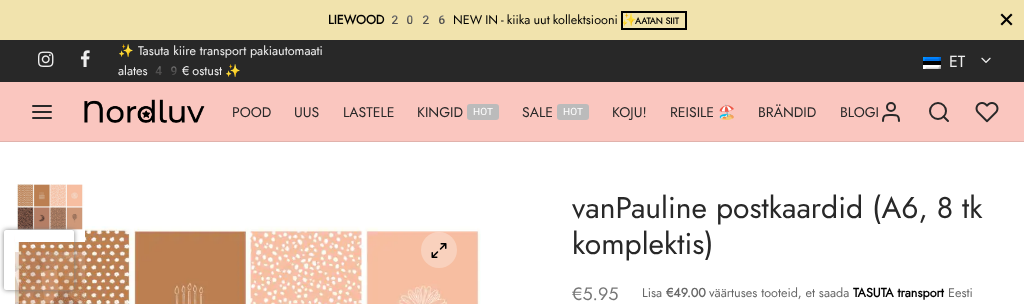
(async () => {
const canvas = document.querySelector("canvas")
canvas.width = 1024
canvas.height = 304
const c = canvas.getContext("2d")
c.miterLimit = 4
c.fontKerning = "normal"
function T(s,x,y){c.fillText(s,x,y)}
function R(x,y,w,h){c.fillRect(x,y,w,h)}
function Q(x,y,w,h,r){c.beginPath();c.roundRect(x,y,w,h,r);c.fill()}
async function I(src,x,y,w,h){const img=new Image();img.src=src;await img.decode();c.drawImage(img,x,y,w,h)}
let path
c.fillStyle="#fff"
R(0,0,1024,304)
c.fillStyle="#f1e3ad"
R(0,0,1024,40)
c.font="bold 12.6px Jost"
c.fillStyle="#000"
T("LIEWOOD",328,24)
c.font="12.6px Noto Color Emoji"
T("2026",387,24)
c.wordSpacing="-0.75px"
c.font="12.6px Jost"
T("NEW IN - kiika uut kollektsiooni",453,24)
c.wordSpacing="0px"
c.font="12.6px Noto Color Emoji"
T("✨",621,24)
c.strokeStyle="#000"
c.lineWidth=2
c.strokeRect(622,12,64,17)
c.font="bold 9px Jost"
T("AATAN SIIT",635,24)
path = new Path2D("M1002 13.5l10.5 10.5l-1.5 1.5l-10.5-10.5z")
c.fill(path)
path = new Path2D("M1000.5 24l10.5-10.5l1.5 1.5l-10.5 10.5z")
c.fill(path)
await I("9.png",14,226,467,78)
await I("7.png",15,184,70,58)
await I("8.png",15,252,70,52)
c.save()
path = new Path2D("M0 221h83v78h-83zm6 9h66c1 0 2 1 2 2v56c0 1-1 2-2 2h-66c-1 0-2-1-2-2v-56c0-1 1-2 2-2z")
c.clip(path,"evenodd")
c.fillStyle="#808080"
c.filter="blur(2.5px)"
c.beginPath()
c.roundRect(4,230,70,60,2)
c.fill()
c.filter="none"
c.restore()
c.fillStyle="#282828"
R(0,40,1024,42)
await I("1.png",38,51,16,16)
await I("2.png",80,50,10,17)
c.font="12.6px Noto Color Emoji"
c.fillStyle="#eee"
T("✨",118,55)
c.font="12.6px Jost"
T("Tasuta kiire transport pakiautomaati",138,55)
T("alates",118,75)
c.font="12.6px Noto Color Emoji"
T("49",151,75)
c.wordSpacing="-0.75px"
c.font="12.6px Jost"
T("€ ostust",182,75)
c.wordSpacing="0px"
c.font="12.6px Noto Color Emoji"
T("✨",225,75)
await I("3.png",923,57,18,12)
c.font="16px Jost"
T("ET",949,67)
await I("4.png",981,57,10,6)
c.fillStyle="#fac6bf"
R(0,82,1024,59)
path = new Path2D("M33 112h18m-18-6h18m-18 12h18")
c.strokeStyle="#282828"
c.lineCap="round"
c.lineJoin="round"
c.stroke(path)
await I("5.png",84,99,121,24)
c.font="14px Jost"
c.fillStyle="#282828"
T("POOD",232,117)
T("UUS",294,117)
T("LASTELE",343,117)
T("KINGID",417,117)
c.fillStyle="#bbb"
Q(467,104,32,16,3)
c.font="10px Roboto"
c.fillStyle="#fff"
T("HOT",473,115)
c.font="14px Jost"
c.fillStyle="#282828"
T("SALE",522,117)
c.fillStyle="#bbb"
Q(557,104,32,16,3)
c.font="10px Roboto"
c.fillStyle="#fff"
T("HOT",563,115)
c.font="14px Jost"
c.fillStyle="#282828"
T("KOJU!",612,117)
T("REISILE",670,117)
c.font="14px Noto Color Emoji"
T("🏖️",718,117)
c.font="14px Jost"
T("BRÄNDID",758,117)
T("BLOGI",840,117)
path = new Path2D("M899 121c0-6.5-2.5-6-8-6c-5.5 0-8-.5-8 6")
c.stroke(path)
c.beginPath()
c.arc(891,107,4,0,7)
c.stroke()
c.beginPath()
c.arc(938,111,8,0,7)
c.stroke()
path = new Path2D("M948 121l-4.5-4.5")
c.stroke(path)
await I("6.png",975,102,24,21)
c.fillStyle="#e1b2ac"
R(0,141,1024,1)
c.fillStyle="#ffffff4d"
c.beginPath()
c.arc(439,250,18,0,7)
c.fill()
await I("10.png",431,243,16,15)
c.font="30px Jost"
c.fillStyle="#282828"
T("vanPauline postkaardid (A6, 8 tk",572,218)
T("komplektis)",572,254)
c.font="18px Jost"
c.fillStyle="#777"
T("€5.95",572,300)
c.font="12.6px Jost"
c.fillStyle="#686868"
T("Lisa",642,297)
c.font="bold 12.6px Jost"
T("€49.00",666,297)
c.font="12.6px Jost"
T("väärtuses tooteid, et saada",709,297)
c.font="bold 12.6px Jost"
c.fillStyle="#000"
T("TASUTA transport",853,297)
c.font="12.6px Jost"
c.fillStyle="#686868"
T("Eesti",948,297)
})()
